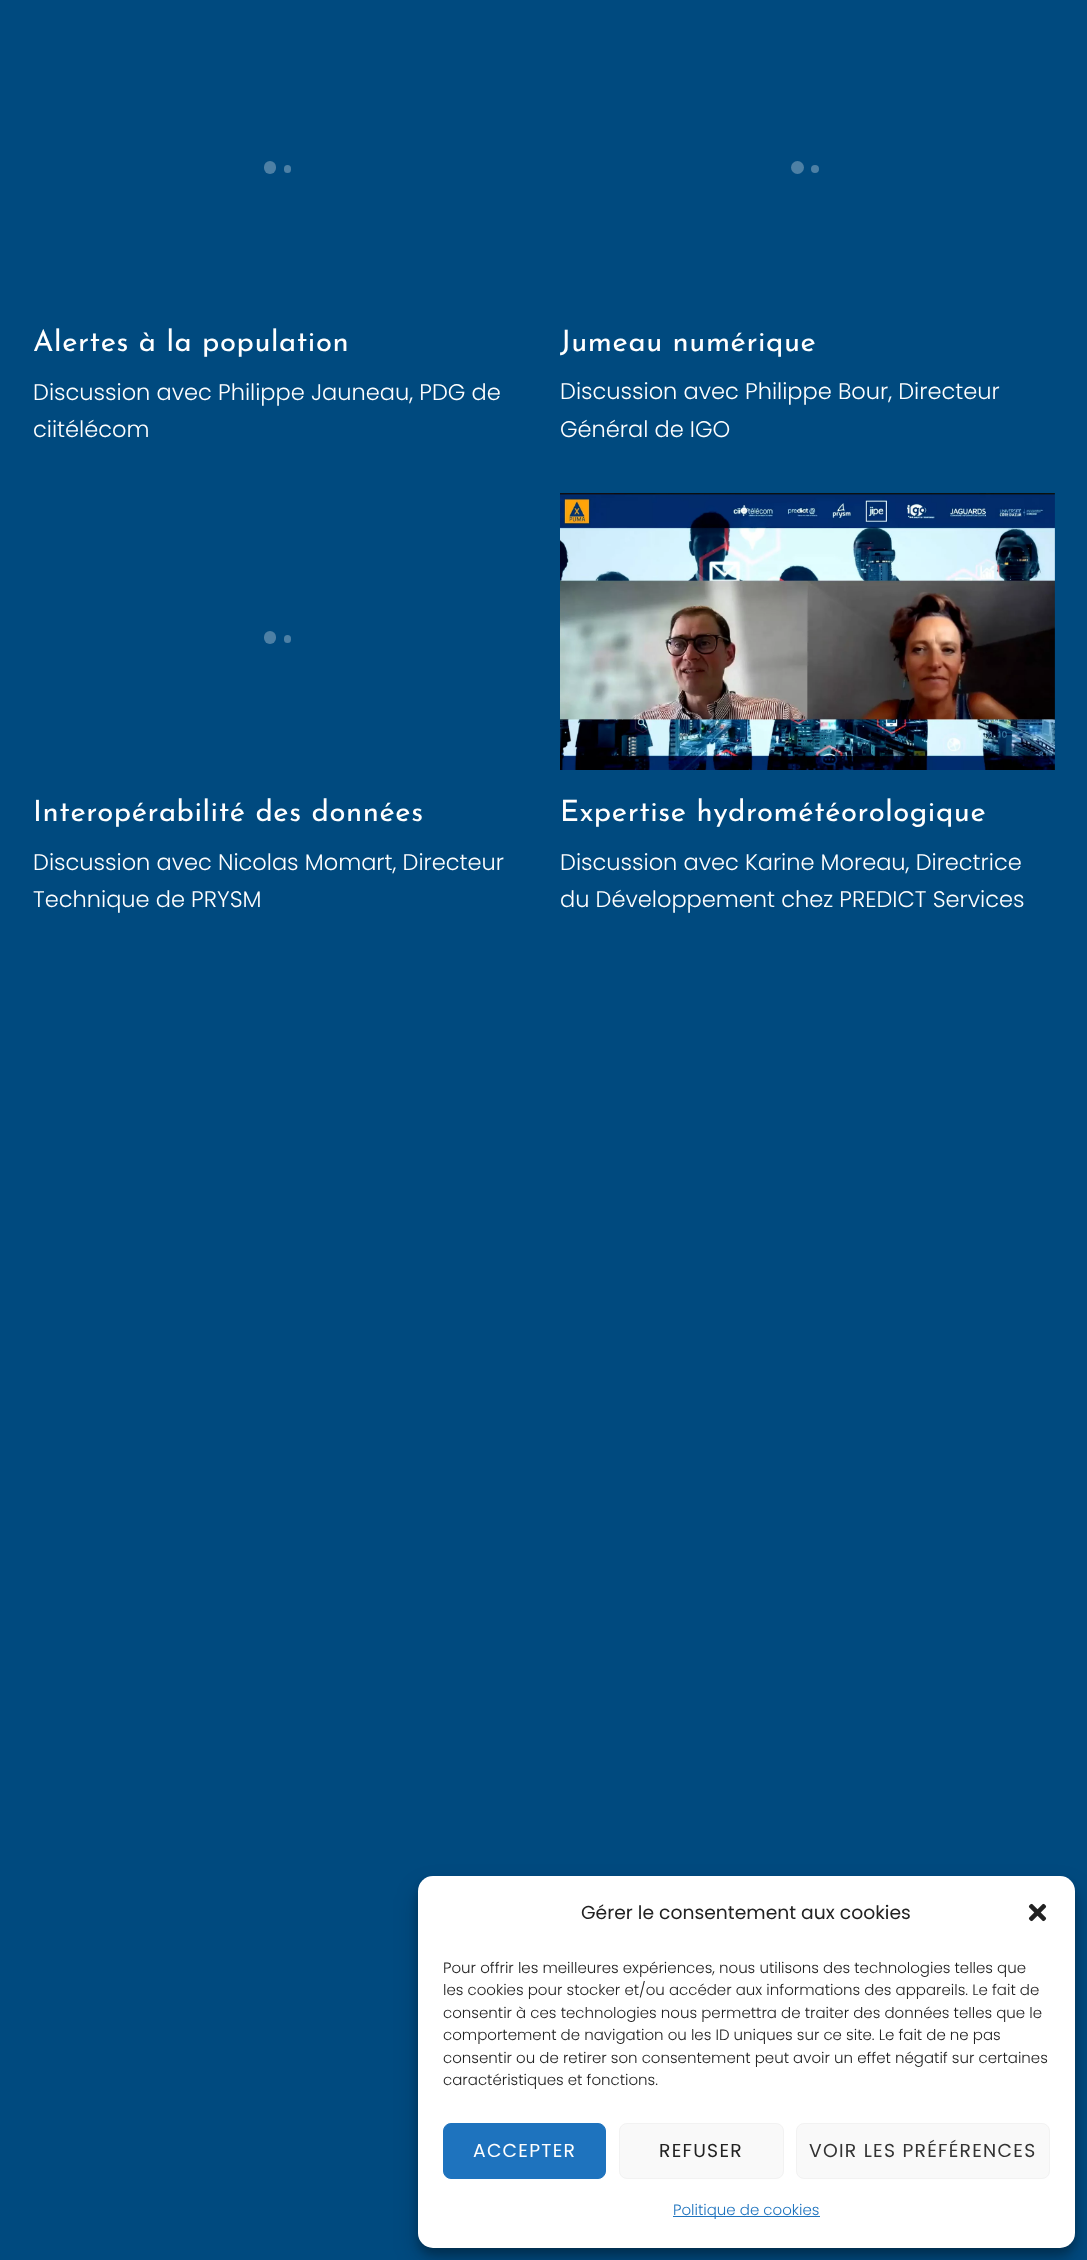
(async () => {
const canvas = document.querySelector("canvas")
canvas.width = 1087
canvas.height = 2260
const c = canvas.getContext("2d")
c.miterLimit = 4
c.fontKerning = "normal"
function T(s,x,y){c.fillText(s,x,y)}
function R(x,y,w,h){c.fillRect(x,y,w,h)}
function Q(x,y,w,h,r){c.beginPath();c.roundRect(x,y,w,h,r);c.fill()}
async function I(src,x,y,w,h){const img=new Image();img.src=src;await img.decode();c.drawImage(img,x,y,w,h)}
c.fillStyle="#004a7f"
R(0,0,1087,2260)
c.fillStyle="#4d80a5"
Q(264,161,12,13,6)
Q(284,165,7,8,3.5)
c.letterSpacing="0.6px"
c.font="29.25px Josefin Sans"
c.fillStyle="#fff"
T("Alertes à la population",33,351)
c.letterSpacing="0px"
c.font="300 22.5px Poppins"
T("Discussion avec Philippe Jauneau, PDG de",33,400)
T("ciitélécom",33,437)
c.fillStyle="#4d80a5"
c.beginPath()
c.arc(797.5,167.5,6.5,0,7)
c.fill()
c.beginPath()
c.arc(815,169,4,0,7)
c.fill()
c.letterSpacing="0.6px"
c.font="29.25px Josefin Sans"
c.fillStyle="#fff"
T("Jumeau numérique",560,351)
c.letterSpacing="0px"
c.font="300 22.5px Poppins"
T("Discussion avec Philippe Bour, Directeur",560,399)
T("Général de IGO",560,437)
c.fillStyle="#4d80a5"
Q(264,631,12,13,6)
Q(284,635,7,8,3.5)
c.letterSpacing="0.6px"
c.font="29.25px Josefin Sans"
c.fillStyle="#fff"
T("Interopérabilité des données",33,821)
c.letterSpacing="0px"
c.font="300 22.5px Poppins"
T("Discussion avec Nicolas Momart, Directeur",33,870)
T("Technique de PRYSM",33,907)
await I("1.png",560,493,495,277)
c.letterSpacing="0.6px"
c.font="29.25px Josefin Sans"
T("Expertise hydrométéorologique",560,821)
c.letterSpacing="0px"
c.font="300 22.5px Poppins"
T("Discussion avec Karine Moreau, Directrice",560,870)
T("du Développement chez PREDICT Services",560,907)
c.fillStyle="#0000003b"
c.filter="blur(4px)"
c.beginPath()
c.roundRect(418,1884,657,371,15)
c.fill()
c.filter="none"
c.fillStyle="#00000030"
c.filter="blur(12.5px)"
c.beginPath()
c.roundRect(418,1889,657,371,15)
c.fill()
c.filter="none"
c.fillStyle="#fff"
Q(418,1876,657,372,15)
c.font="18.75px Poppins"
c.fillStyle="#222"
T("Gérer le consentement aux cookies",581,1919)
await I("2.png",1028,1903,19,19)
c.font="300 15px Poppins"
T("Pour offrir les meilleures expériences, nous utilisons des technologies telles que",443,1973)
T("les cookies pour stocker et/ou accéder aux informations des appareils. Le fait de",443,1995)
T("consentir à ces technologies nous permettra de traiter des données telles que le",443,2018)
T("comportement de navigation ou les ID uniques sur ce site. Le fait de ne pas",443,2040)
T("consentir ou de retirer son consentement peut avoir un effet négatif sur certaines",443,2063)
T("caractéristiques et fonctions.",443,2085)
c.fillStyle="#1e73be"
c.beginPath()
c.roundRect(443.5,2123.5,162,55,7.5)
c.fill()
c.strokeStyle="#1e73be"
c.stroke()
c.letterSpacing="1.25px"
c.font="18.75px Poppins"
c.fillStyle="#fff"
T("ACCEPTER",473,2157)
c.fillStyle="#f9f9f9"
c.beginPath()
c.roundRect(619.5,2123.5,164,55,7.5)
c.fill()
c.strokeStyle="#f2f2f2"
c.stroke()
c.fillStyle="#222"
T("REFUSER",659,2157)
c.fillStyle="#f9f9f9"
c.beginPath()
c.roundRect(796.5,2123.5,253,55,7.5)
c.fill()
c.stroke()
c.fillStyle="#333"
T("VOIR LES PRÉFÉRENCES",809,2157)
c.fillStyle="#1e73be"
R(673,2216,147,1)
c.letterSpacing="0px"
c.font="300 15px Poppins"
T("Politique de cookies",673,2215)
})()
